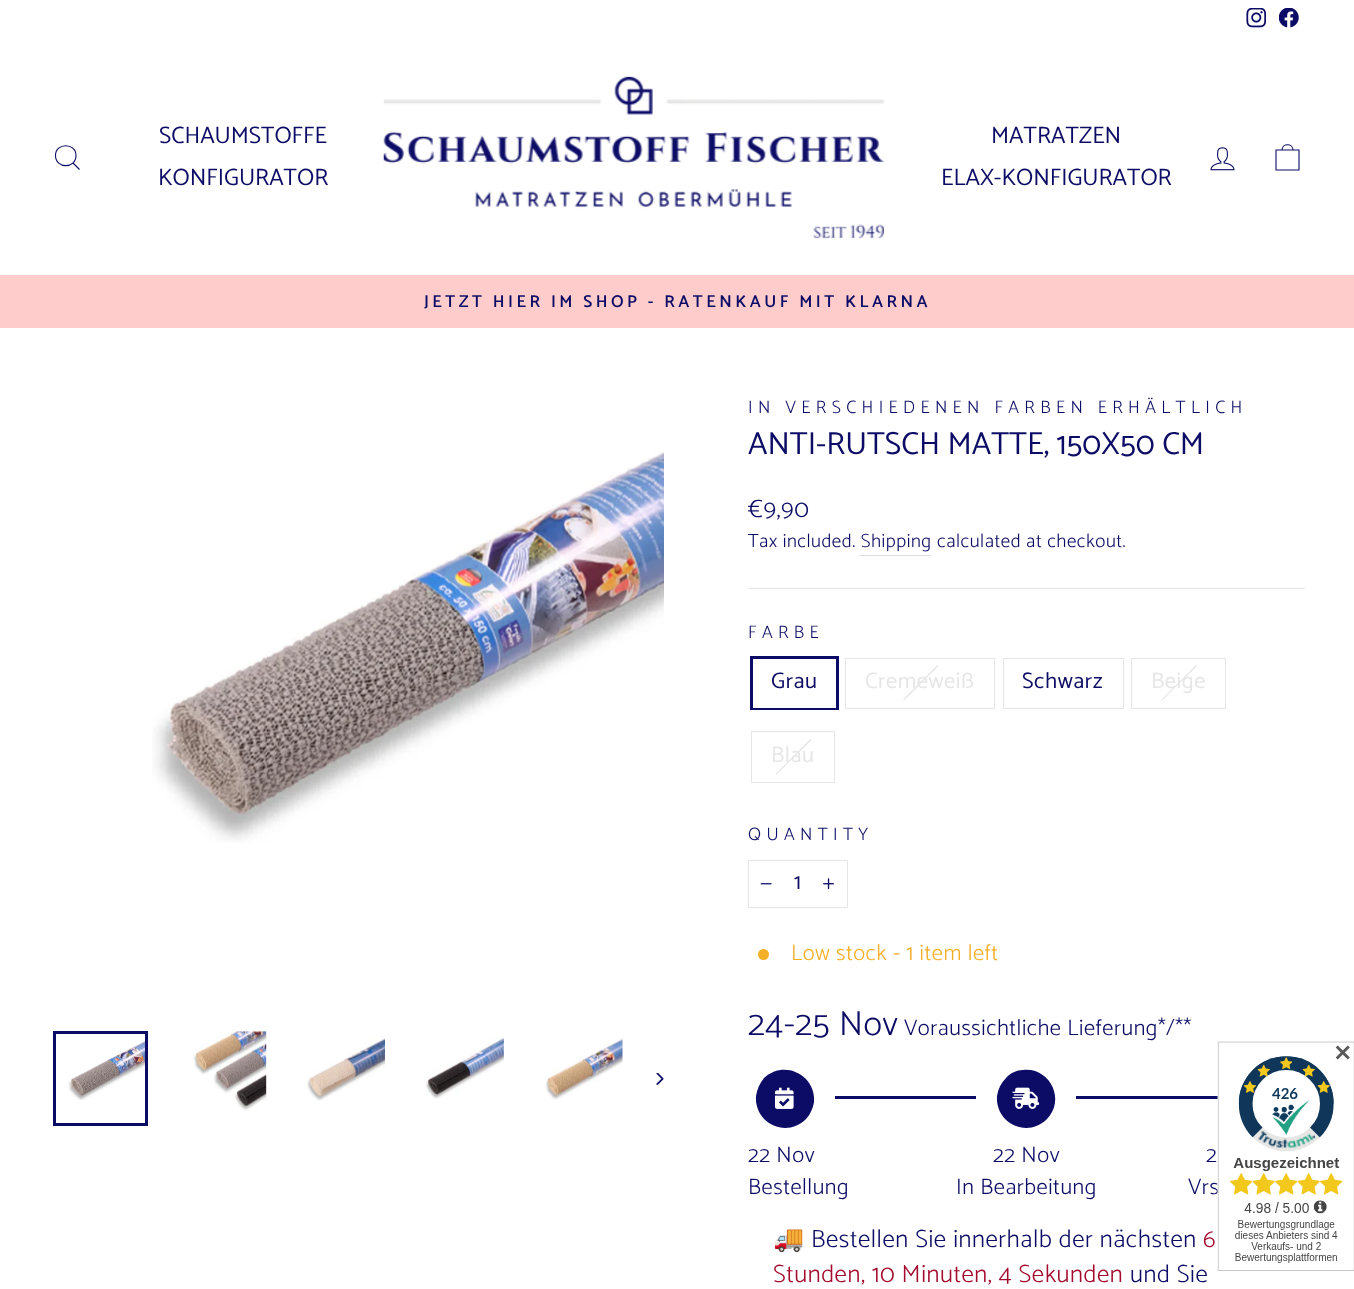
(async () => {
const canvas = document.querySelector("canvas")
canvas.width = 1354
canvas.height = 1289
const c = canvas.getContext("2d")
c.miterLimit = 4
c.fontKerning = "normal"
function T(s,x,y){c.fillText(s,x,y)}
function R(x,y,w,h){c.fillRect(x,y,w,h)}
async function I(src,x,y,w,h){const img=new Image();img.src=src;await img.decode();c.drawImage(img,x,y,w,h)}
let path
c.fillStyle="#fff"
R(0,0,1354,1289)
await I("1.png",1246,8,20,20)
await I("2.png",1279,8,20,20)
path = new Path2D("M76 155.5c0 13.5-20.5 13.5-20.5 0c0-13 20.5-13 20.5 0zm3.5 14l-6.5-6.5")
c.strokeStyle="#0c0c66"
c.lineWidth=1.1
c.stroke(path)
c.font="23.75px Catamaran"
c.fillStyle="#0c0c66"
T("SCHAUMSTOFFE",159,143)
T("KONFIGURATOR",158,185)
await I("3.png",383,76,501,163)
T("MATRATZEN",991,143)
T("ELAX-KONFIGURATOR",941,185)
await I("4.png",1210,147,25,24)
path = new Path2D("M1276 150h23v20h-23zm6 0c0-7 11-7 11 0")
c.stroke(path)
c.fillStyle="#fcc"
R(0,275,1354,53)
c.letterSpacing="3.45px"
c.font="600 17.2px Catamaran"
c.fillStyle="#0c0c66"
T("JETZT HIER IM SHOP - RATENKAUF MIT KLARNA",424,307)
await I("5.png",152,451,512,392)
await I("6.png",68,1039,77,61)
c.lineWidth=3
c.strokeRect(54.5,1032.5,92,92)
await I("7.png",193,1031,74,80)
await I("8.png",307,1037,78,64)
await I("9.png",426,1037,78,62)
await I("10.png",545,1038,78,62)
await I("11.png",656,1073,8,12)
c.letterSpacing="5.4px"
c.font="300 18px Catamaran"
T("IN VERSCHIEDENEN FARBEN ERHÄLTLICH",748,413)
c.letterSpacing="0px"
c.font="31.9px Catamaran"
T("ANTI-RUTSCH MATTE, 150X50 CM",748,454)
c.letterSpacing="0.55px"
c.font="300 25px Catamaran"
T("€9,90",748,517)
c.font="300 19.1px Catamaran"
T("Tax included. Shipping",748,547)
T("calculated at checkout.",937,547)
c.fillStyle="#dbdbe8"
R(860,555,71,1)
c.fillStyle="#e6e6e6"
R(748,588,557,1)
c.letterSpacing="5.4px"
c.font="300 18px Catamaran"
c.fillStyle="#0c0c66"
T("FARBE",748,638)
c.strokeRect(751.5,657.5,86,51)
c.fillStyle="#fff"
R(753,707,83,1)
c.letterSpacing="0.55px"
c.font="22.5px Catamaran"
c.fillStyle="#0c0c66"
T("Grau",771,688)
c.strokeStyle="#e6e6e6"
c.lineWidth=1
c.strokeRect(845.5,658.5,149,50)
c.fillStyle="#e6e6e6"
path = new Path2D("M937.5 665l1 1l-34.5 34.5l-1-1z")
c.fill(path)
T("Cremeweiß",865,688)
c.strokeRect(1003.5,658.5,120,50)
c.fillStyle="#0c0c66"
T("Schwarz",1022,688)
c.strokeRect(1131.5,658.5,94,50)
c.fillStyle="#e6e6e6"
path = new Path2D("M1196 665l1 1l-35 34.5l-.5-1z")
c.fill(path)
T("Beige",1151,688)
c.strokeRect(751.5,731.5,83,51)
path = new Path2D("M810.5 739l1 1l-35 34.5l-.5-1z")
c.fill(path)
T("Blau",771,762)
c.letterSpacing="5.4px"
c.font="300 18px Catamaran"
c.fillStyle="#0c0c66"
T("QUANTITY",748,840)
c.strokeRect(748.5,860.5,99,47)
await I("12.png",760,883,12,2)
c.letterSpacing="0.55px"
c.font="22.5px Catamaran"
T("1",794,889)
await I("13.png",823,878,11,12)
c.fillStyle="#f4af29"
c.beginPath()
c.arc(763.5,954.5,5.5,0,7)
c.fill()
c.font="300 22.5px Catamaran"
T("Low stock - 1 item left",791,960)
c.font="300 35px Catamaran"
c.fillStyle="#0c0c66"
T("24-25 Nov",748,1035)
c.font="300 22.5px Catamaran"
T("Voraussichtliche Lieferung*/**",904,1035)
path = new Path2D("M764 1078c20-19 52-3 50 24c-1 6-4 13-8 17c-20 20-52 4-50-23c1-7 4-13 8-18z")
c.fill(path)
await I("14.png",775,1087,19,22)
R(835,1096,141,3)
T("22 Nov",748,1162)
T("Bestellung",748,1194)
path = new Path2D("M1006 1078c4-5 11-8 17-8c27-3 43 30 24 49c-20 20-52 4-50-23c1-7 4-13 9-18z")
c.fill(path)
await I("15.png",1012,1087,28,22)
R(1076,1096,142,3)
T("22 Nov",993,1162)
T("In Bearbeitung",956,1194)
T("2",1206,1162)
T("Vrs",1188,1194)
c.font="25px Noto Color Emoji"
T("🚚",773,1247)
c.font="300 25px Catamaran"
T("Bestellen Sie innerhalb der nächsten",811,1247)
c.fillStyle="#a30a2d"
T("6",1203,1247)
T("Stunden, 10 Minuten, 4 Sekunden",773,1282)
c.fillStyle="#0c0c66"
T("und Sie",1130,1282)
await I("16.png",1217,1041,137,230)
c.font="bold 22.5px DejaVu Sans"
c.fillStyle="#595959"
T("✕",1333,1061)
})()
